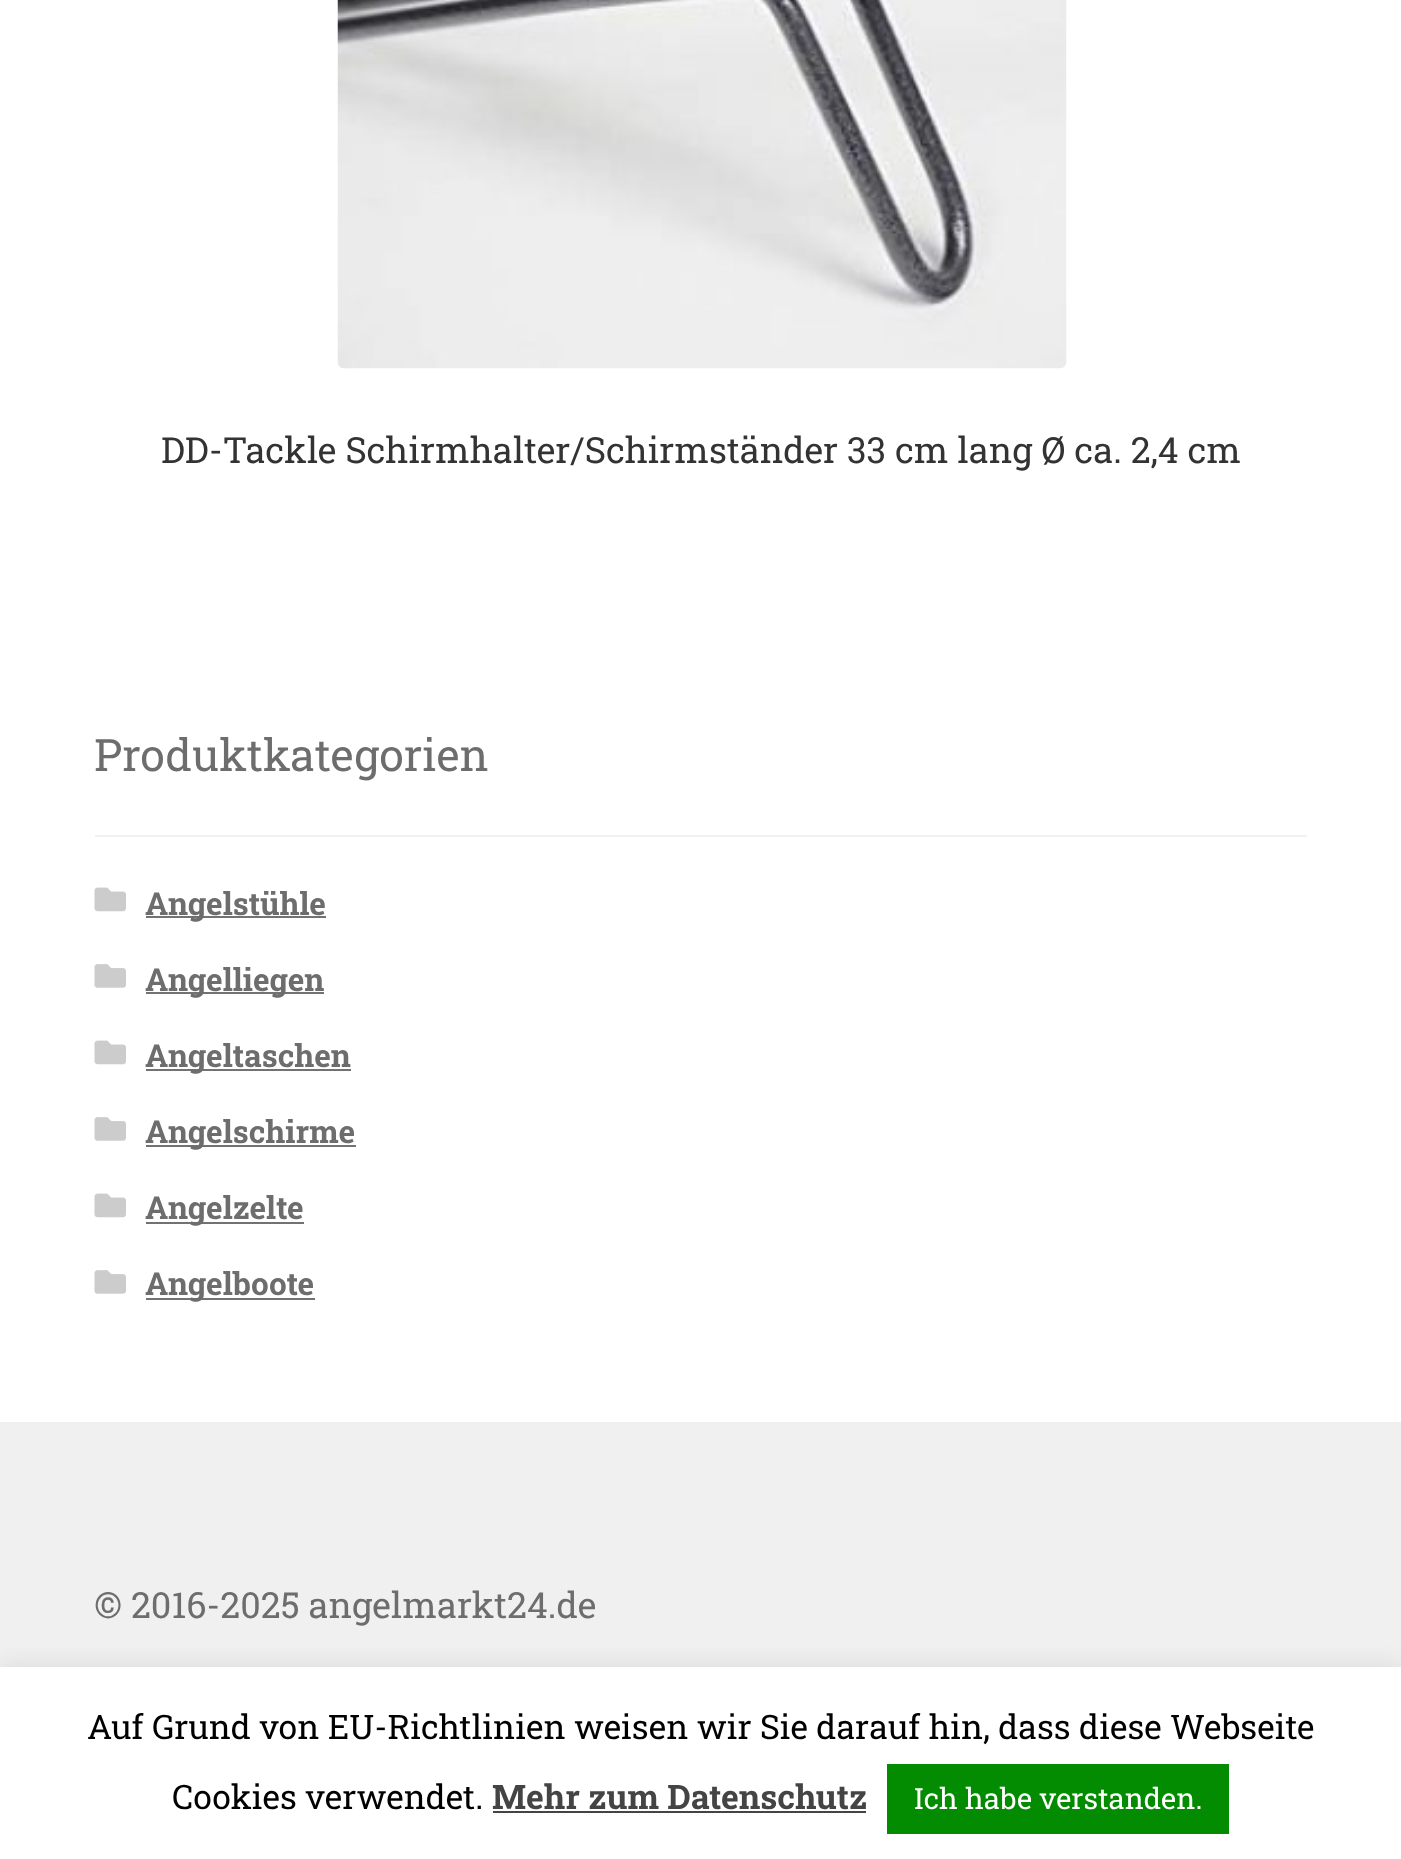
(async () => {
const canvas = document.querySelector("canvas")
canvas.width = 1401
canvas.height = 1859
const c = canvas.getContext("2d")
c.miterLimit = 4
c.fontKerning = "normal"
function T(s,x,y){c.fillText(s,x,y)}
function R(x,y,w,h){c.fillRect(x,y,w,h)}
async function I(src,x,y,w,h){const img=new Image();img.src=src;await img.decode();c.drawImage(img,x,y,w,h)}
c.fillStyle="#fff"
R(0,0,1401,1859)
await I("1.png",337,0,730,369)
c.font="36px Roboto Slab"
c.fillStyle="#333"
T("DD-Tackle Schirmhalter/Schirmständer 33 cm lang Ø ca. 2,4 cm",161,463)
c.fillStyle="#f2f2f2"
R(95,835,1212,2)
c.font="44.5px Roboto Slab"
c.fillStyle="#6d6d6d"
T("Produktkategorien",94,771)
await I("2.png",94,887,32,25)
c.fillStyle="#727272"
R(146,916,180,2)
c.font="bold 31.5px Roboto Slab"
c.fillStyle="#6d6d6d"
T("Angelstühle",145,915)
await I("3.png",94,964,32,24)
c.fillStyle="#727272"
R(146,992,178,2)
c.fillStyle="#6d6d6d"
T("Angelliegen",145,991)
await I("2.png",94,1040,32,25)
c.fillStyle="#727272"
R(146,1069,205,2)
c.fillStyle="#6d6d6d"
T("Angeltaschen",145,1067)
await I("3.png",94,1117,32,24)
c.fillStyle="#727272"
R(146,1145,210,2)
c.fillStyle="#6d6d6d"
T("Angelschirme",145,1143)
await I("2.png",94,1193,32,25)
c.fillStyle="#727272"
R(146,1222,158,2)
c.fillStyle="#6d6d6d"
T("Angelzelte",145,1219)
await I("3.png",94,1270,32,24)
c.fillStyle="#727272"
R(146,1298,169,2)
c.fillStyle="#6d6d6d"
T("Angelboote",145,1295)
c.fillStyle="#f0f0f0"
R(0,1422,1401,245)
c.font="36px Roboto Slab"
c.fillStyle="#6d6d6d"
T("© 2016-2025 angelmarkt24.de",94,1618)
c.fillStyle="#acabab4d"
c.filter="blur(11px)"
c.beginPath()
c.rect(0,1665,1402,194)
c.fill()
c.filter="none"
c.fillStyle="#fff"
R(0,1667,1401,192)
c.font="33.75px Roboto Slab"
c.fillStyle="#000"
T("Auf Grund von EU-Richtlinien weisen wir Sie darauf hin, dass diese Webseite",87,1739)
T("Cookies verwendet.",172,1809)
c.font="bold 33.75px Roboto Slab"
c.fillStyle="#444"
T("Mehr zum Datenschutz",492,1809)
R(493,1811,373,2)
c.fillStyle="#038c01"
R(887,1764,342,70)
c.font="29.25px Roboto Slab"
c.fillStyle="#fff"
T("Ich habe verstanden.",914,1809)
})()
